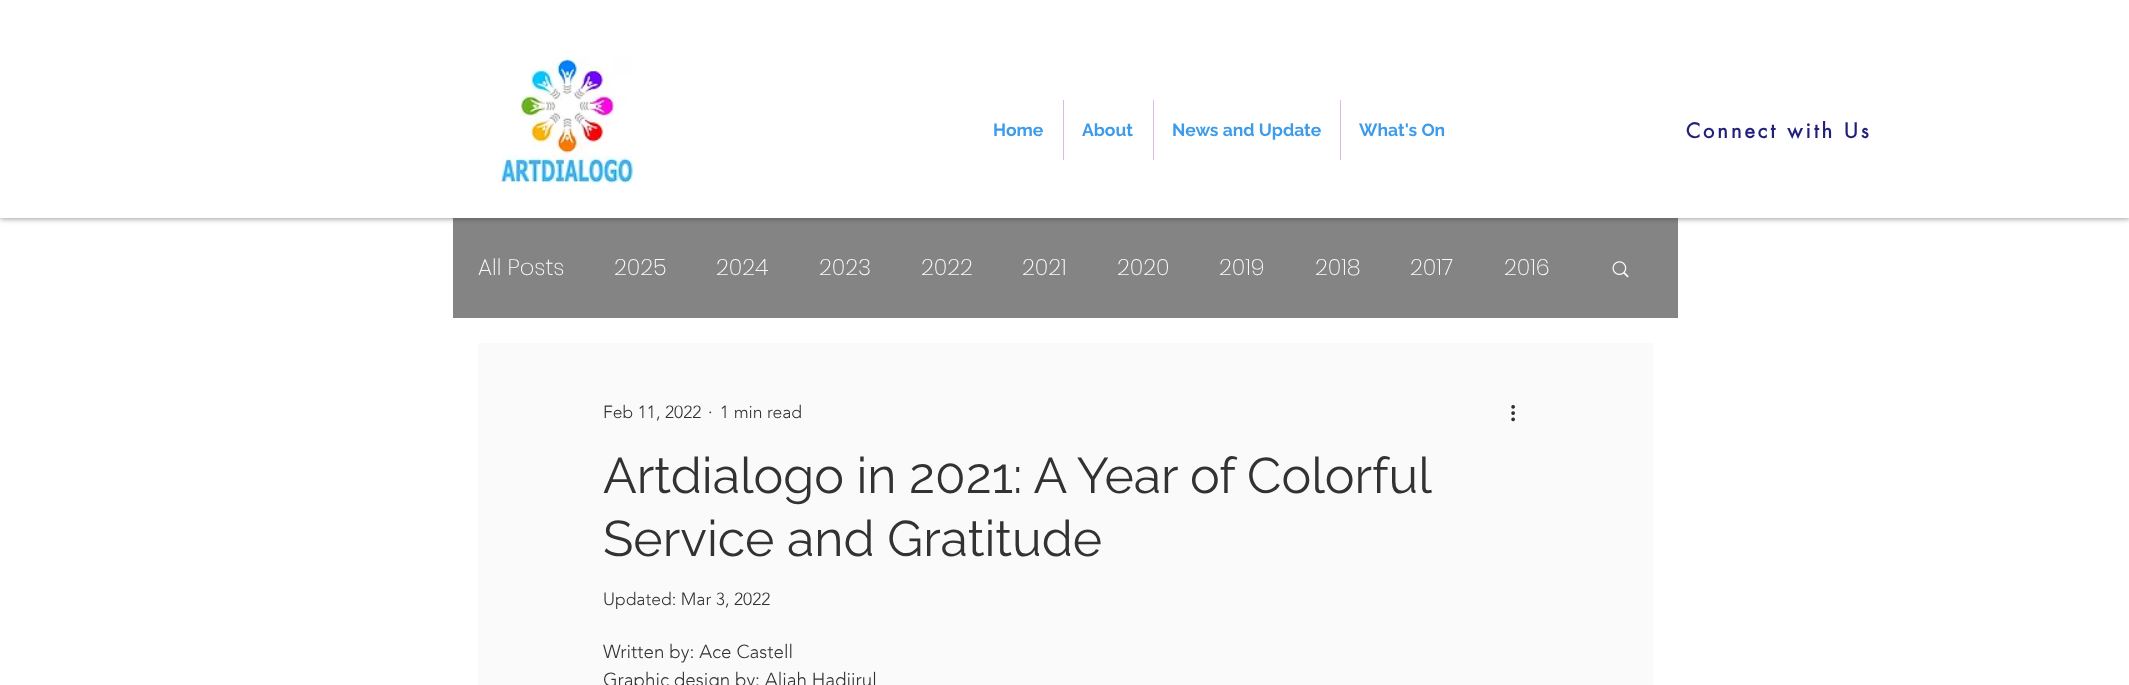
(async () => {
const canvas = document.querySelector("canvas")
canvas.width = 2129
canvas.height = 685
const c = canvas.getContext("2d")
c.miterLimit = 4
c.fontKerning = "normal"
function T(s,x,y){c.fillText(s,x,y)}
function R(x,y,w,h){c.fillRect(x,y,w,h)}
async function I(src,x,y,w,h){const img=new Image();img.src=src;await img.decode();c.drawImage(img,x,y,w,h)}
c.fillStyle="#fff"
R(0,0,2129,685)
c.fillStyle="#00000080"
c.filter="blur(3px)"
c.beginPath()
c.rect(0,0,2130,218)
c.fill()
c.filter="none"
c.fillStyle="#fff"
R(0,0,2129,218)
await I("1.png",497,57,137,128)
c.font="bold 17.5px Raleway"
c.fillStyle="#3d9be9"
T("Home",993,136)
c.fillStyle="#d8bde2"
R(1063,100,1,60)
c.fillStyle="#3d9be9"
T("About",1082,136)
c.fillStyle="#d8bde2"
R(1153,100,1,60)
c.fillStyle="#3d9be9"
T("News and Update",1172,136)
c.fillStyle="#d8bde2"
R(1340,100,1,60)
c.fillStyle="#3d9be9"
T("What's On",1359,136)
c.letterSpacing="3px"
c.font="bold 20px futura"
c.fillStyle="#221f7b"
T("Connect with Us",1686,138)
c.fillStyle="#2f2e2e96"
R(453,218,1225,100)
c.letterSpacing="0px"
c.font="200 22.5px Poppins"
c.fillStyle="#fafafa"
T("All Posts",478,275)
T("2025",614,275)
T("2024",716,275)
T("2023",819,275)
T("2022",921,275)
T("2021",1022,275)
T("2020",1117,275)
T("2019",1219,275)
T("2018",1315,275)
T("2017",1410,275)
T("2016",1504,275)
await I("2.png",1612,261,17,17)
R(478,343,1175,342)
c.font="300 17.5px 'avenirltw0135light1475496'"
c.fillStyle="#323232"
T("Feb 11, 2022",603,418)
T("·",708,418)
T("1 min read",720,418)
await I("3.png",1511,405,4,17)
c.wordSpacing="-0.25px"
c.font="50px Raleway"
T("Artdialogo in 2021: A Year of Colorful",603,493)
c.wordSpacing="0px"
T("Service and Gratitude",603,556)
c.font="300 17.5px 'avenirltw0135light1475496'"
T("Updated: Mar 3, 2022",603,605)
c.font="300 18.75px 'avenirltw0135light1475496'"
T("Written by: Ace Castell",603,658)
T("Graphic design by: Aliah Hadjirul",603,686)
})()
